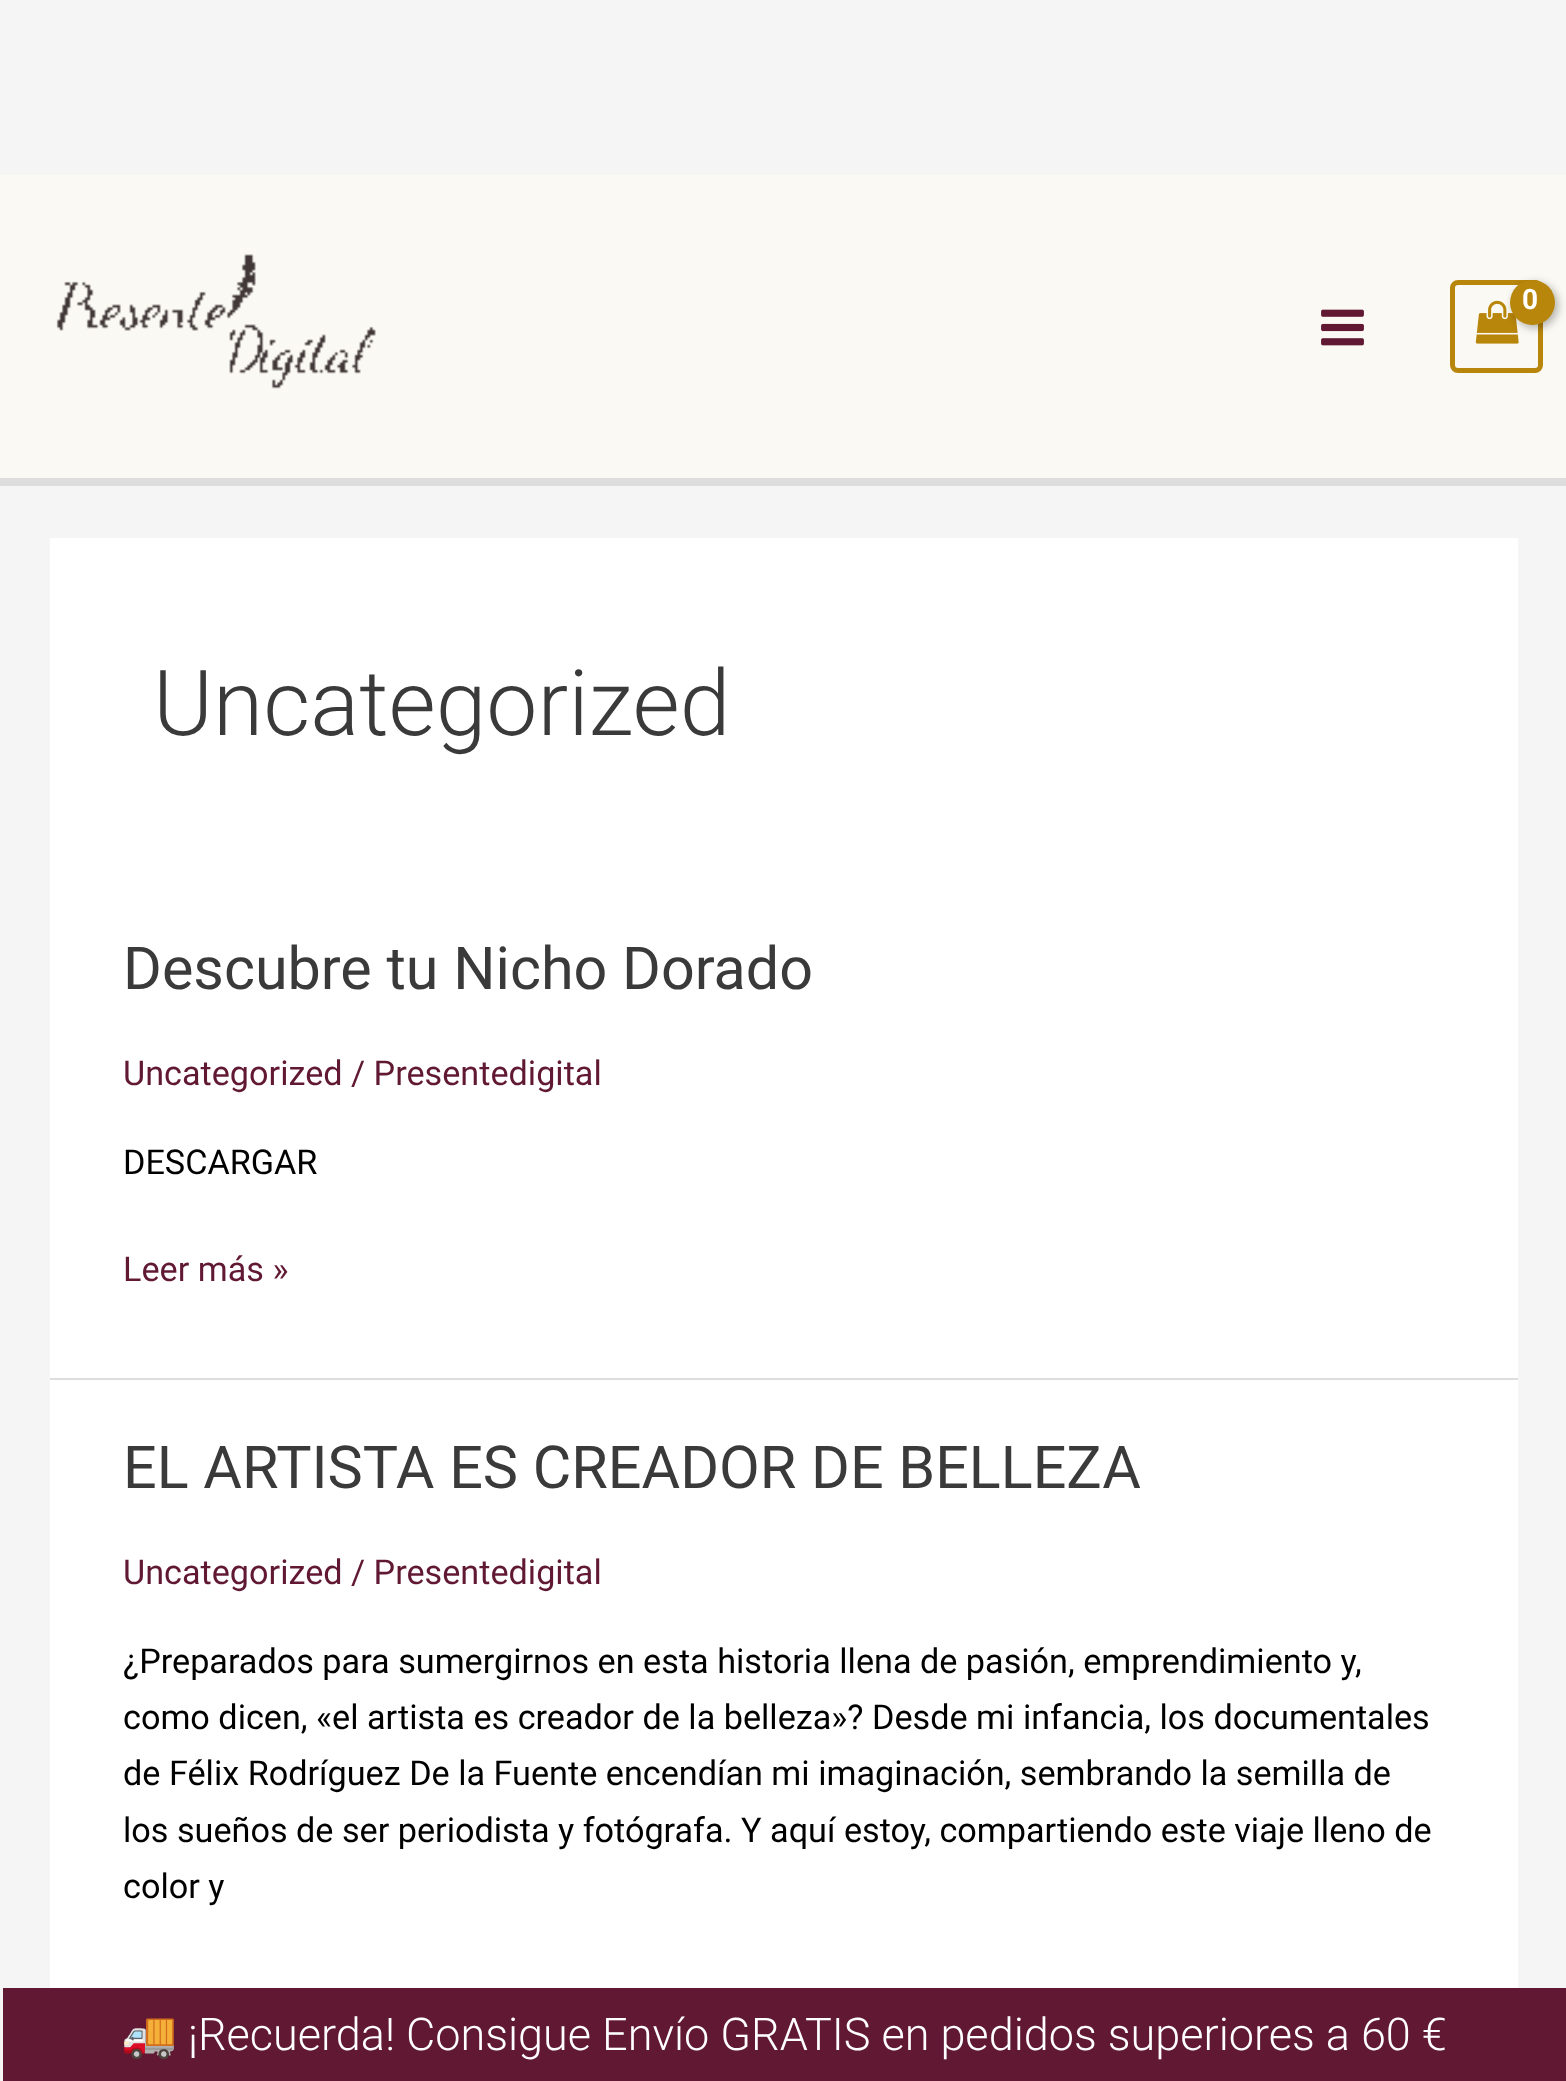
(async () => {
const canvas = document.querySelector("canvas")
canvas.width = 1566
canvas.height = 2081
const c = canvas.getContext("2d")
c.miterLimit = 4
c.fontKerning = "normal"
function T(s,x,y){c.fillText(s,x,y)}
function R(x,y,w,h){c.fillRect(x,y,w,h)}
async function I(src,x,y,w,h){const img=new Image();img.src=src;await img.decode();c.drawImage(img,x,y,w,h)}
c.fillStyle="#f5f5f5"
R(0,0,1566,2081)
c.fillStyle="#fbf9f3"
R(0,175,1566,303)
c.fillStyle="#ddd"
R(0,478,1566,8)
await I("1.png",56,254,320,135)
c.beginPath()
c.roundRect(1452.5,282.5,88,88,5.5)
c.strokeStyle="#b8860b"
c.lineWidth=5
c.stroke()
await I("2.png",1475,300,44,44)
c.fillStyle="#0000004d"
c.filter="blur(4px)"
c.beginPath()
c.roundRect(1513,283,45,45,22.5)
c.fill()
c.filter="none"
c.fillStyle="#b8860b"
c.beginPath()
c.arc(1532.5,302.5,22.5,0,7)
c.fill()
c.letterSpacing="-1px"
c.font="bold 28px Roboto"
c.fillStyle="#fff"
T("0",1522,309)
await I("3.png",1321,309,43,37)
R(50,538,1468,840)
c.letterSpacing="0px"
c.font="300 91.25px Roboto"
c.fillStyle="#3a3a3a"
T("Uncategorized",153,735)
c.fillStyle="#ddd"
R(50,1378,1468,2)
c.font="59.25px Roboto"
c.fillStyle="#3a3a3a"
T("Descubre tu Nicho Dorado",123,989)
c.font="34.2px Roboto"
c.fillStyle="#601833"
T("Uncategorized / Presentedigital",123,1085)
c.fillStyle="#000"
T("DESCARGAR",123,1174)
c.fillStyle="#601833"
T("Leer más »",123,1281)
c.fillStyle="#fff"
R(50,1380,1468,608)
c.font="59.25px Roboto"
c.fillStyle="#3a3a3a"
T("EL ARTISTA ES CREADOR DE BELLEZA",123,1488)
c.font="34.2px Roboto"
c.fillStyle="#601833"
T("Uncategorized / Presentedigital",123,1584)
c.fillStyle="#000"
T("¿Preparados para sumergirnos en esta historia llena de pasión, emprendimiento y,",123,1673)
T("como dicen, «el artista es creador de la belleza»? Desde mi infancia, los documentales",123,1729)
T("de Félix Rodríguez De la Fuente encendían mi imaginación, sembrando la semilla de",123,1785)
T("los sueños de ser periodista y fotógrafa. Y aquí estoy, compartiendo este viaje lleno de",123,1842)
T("color y",123,1898)
c.fillStyle="#601833"
R(3,1988,1563,93)
c.font="45px Noto Color Emoji"
c.fillStyle="#fff"
T("🚚",121,2050)
c.font="300 45px Roboto"
T("¡Recuerda! Consigue Envío GRATIS en pedidos superiores a 60 €",188,2050)
})()
